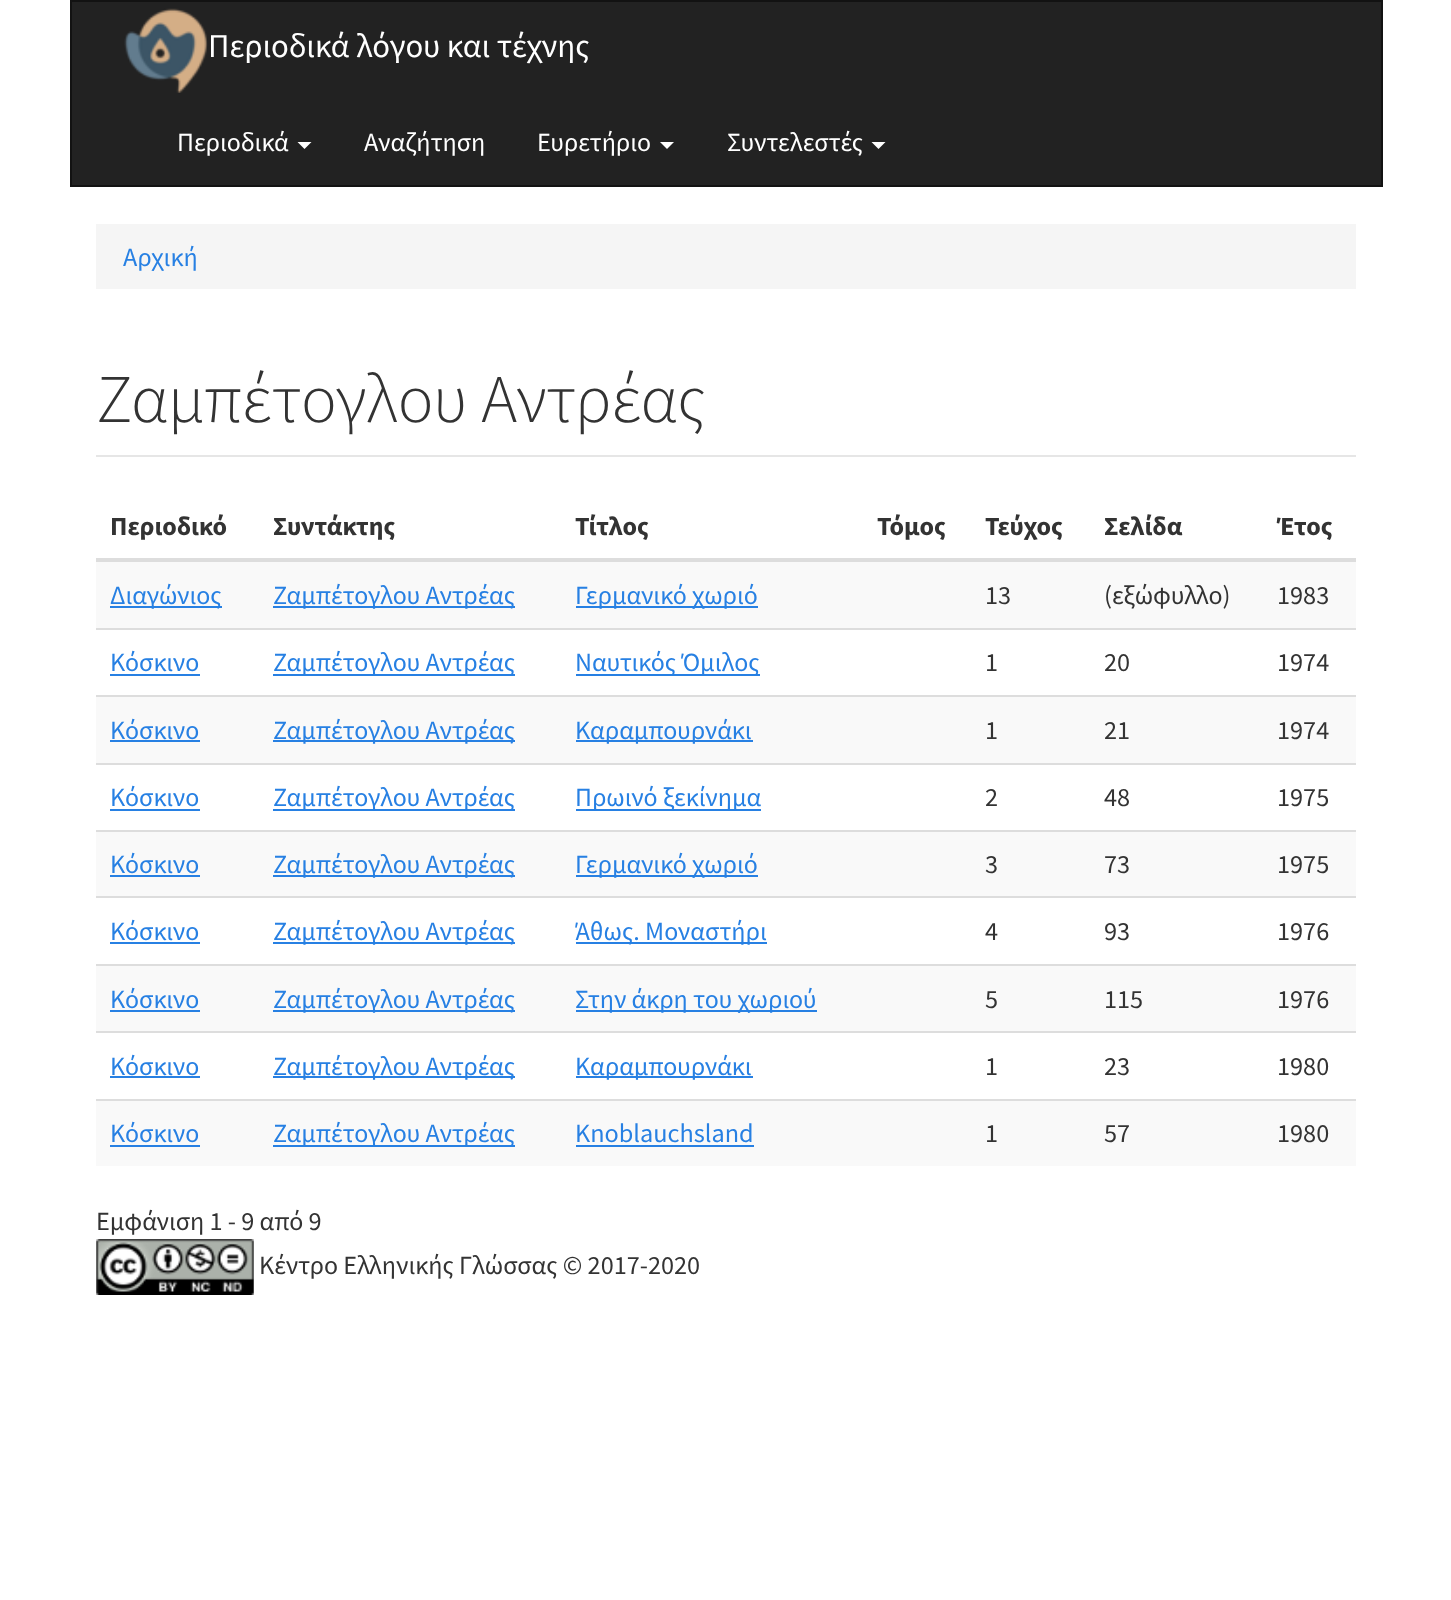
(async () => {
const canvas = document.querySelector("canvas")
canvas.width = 1451
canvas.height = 1600
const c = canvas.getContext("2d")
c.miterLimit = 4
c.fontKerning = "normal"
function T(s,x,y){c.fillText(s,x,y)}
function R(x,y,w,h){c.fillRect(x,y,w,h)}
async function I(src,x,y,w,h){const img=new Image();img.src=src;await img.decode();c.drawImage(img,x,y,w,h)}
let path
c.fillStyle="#fff"
R(0,0,1451,1600)
c.fillStyle="#222"
c.beginPath()
c.rect(71,1,1311,185)
c.fill()
c.strokeStyle="#121212"
c.lineWidth=2
c.stroke()
await I("1.png",124,8,84,85)
c.font="33.25px Source Sans Pro"
c.fillStyle="#fff"
T("Περιοδικά λόγου και τέχνης",208,57)
c.font="26.25px Source Sans Pro"
T("Περιοδικά",177,151)
path = new Path2D("M297.5 142h14l-7 7z")
c.fill(path)
T("Αναζήτηση",364,151)
T("Ευρετήριο",537,151)
path = new Path2D("M660 142h14l-7 7z")
c.fill(path)
T("Συντελεστές",727,151)
path = new Path2D("M871.5 142h14l-7 7z")
c.fill(path)
c.fillStyle="#f5f5f5"
R(96,224,1260,65)
c.fillStyle="#2780e3"
T("Αρχική",123,266)
c.fillStyle="#e6e6e6"
R(96,455,1260,2)
c.font="300 68.25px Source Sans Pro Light"
c.fillStyle="#333"
T("Ζαμπέτογλου Αντρέας",96,422)
c.font="bold 26.25px Source Sans Pro"
T("Περιοδικό",110,535)
T("Συντάκτης",273,535)
T("Τίτλος",575,535)
T("Τόμος",877,535)
T("Τεύχος",985,535)
T("Σελίδα",1104,535)
c.fillStyle="#ddd"
R(96,558,1260,4)
c.fillStyle="#333"
T("Έτος",1277,535)
c.fillStyle="#f9f9f9"
R(96,562,1260,66)
c.fillStyle="#2780e3"
R(110,606,112,2)
c.font="26.25px Source Sans Pro"
T("Διαγώνιος",110,604)
R(273,606,242,2)
T("Ζαμπέτογλου Αντρέας",273,604)
R(576,606,182,2)
T("Γερμανικό χωριό",575,604)
c.fillStyle="#333"
T("13",985,604)
T("(εξώφυλλο)",1104,604)
T("1983",1277,604)
c.fillStyle="#2780e3"
T("Κόσκινο",110,671)
R(110,674,90,2)
R(273,674,242,2)
T("Ζαμπέτογλου Αντρέας",273,671)
R(576,674,184,2)
T("Ναυτικός Όμιλος",575,671)
c.fillStyle="#333"
T("1",985,671)
T("20",1104,671)
c.fillStyle="#ddd"
R(96,628,1260,2)
c.fillStyle="#333"
T("1974",1277,671)
c.fillStyle="#f9f9f9"
R(96,697,1260,66)
c.fillStyle="#2780e3"
T("Κόσκινο",110,739)
R(110,740,90,2)
R(273,740,242,2)
T("Ζαμπέτογλου Αντρέας",273,739)
R(576,740,177,2)
T("Καραμπουρνάκι",575,739)
c.fillStyle="#333"
T("1",985,739)
T("21",1104,739)
c.fillStyle="#ddd"
R(96,695,1260,2)
c.fillStyle="#333"
T("1974",1277,739)
c.fillStyle="#2780e3"
T("Κόσκινο",110,806)
R(110,809,90,2)
R(273,809,242,2)
T("Ζαμπέτογλου Αντρέας",273,806)
R(576,809,185,2)
T("Πρωινό ξεκίνημα",575,806)
c.fillStyle="#333"
T("2",985,806)
T("48",1104,806)
c.fillStyle="#ddd"
R(96,763,1260,2)
c.fillStyle="#333"
T("1975",1277,806)
c.fillStyle="#f9f9f9"
R(96,832,1260,64)
c.fillStyle="#2780e3"
T("Κόσκινο",110,873)
R(110,875,90,2)
R(273,875,242,2)
T("Ζαμπέτογλου Αντρέας",273,873)
R(576,875,182,2)
T("Γερμανικό χωριό",575,873)
c.fillStyle="#333"
T("3",985,873)
T("73",1104,873)
c.fillStyle="#ddd"
R(96,830,1260,2)
c.fillStyle="#333"
T("1975",1277,873)
c.fillStyle="#2780e3"
T("Κόσκινο",110,940)
R(110,942,90,2)
R(273,942,242,2)
T("Ζαμπέτογλου Αντρέας",273,940)
R(576,942,191,2)
T("Άθως. Μοναστήρι",575,940)
c.fillStyle="#333"
T("4",985,940)
T("93",1104,940)
c.fillStyle="#ddd"
R(96,896,1260,2)
c.fillStyle="#333"
T("1976",1277,940)
c.fillStyle="#f9f9f9"
R(96,966,1260,65)
c.fillStyle="#2780e3"
T("Κόσκινο",110,1008)
R(110,1010,90,2)
R(273,1010,242,2)
T("Ζαμπέτογλου Αντρέας",273,1008)
R(576,1010,241,2)
T("Στην άκρη του χωριού",575,1008)
c.fillStyle="#333"
T("5",985,1008)
T("115",1104,1008)
c.fillStyle="#ddd"
R(96,964,1260,2)
c.fillStyle="#333"
T("1976",1277,1008)
c.fillStyle="#2780e3"
T("Κόσκινο",110,1075)
R(110,1076,90,2)
R(273,1076,242,2)
T("Ζαμπέτογλου Αντρέας",273,1075)
R(576,1076,177,2)
T("Καραμπουρνάκι",575,1075)
c.fillStyle="#333"
T("1",985,1075)
T("23",1104,1075)
c.fillStyle="#ddd"
R(96,1031,1260,2)
c.fillStyle="#333"
T("1980",1277,1075)
c.fillStyle="#f9f9f9"
R(96,1101,1260,65)
c.fillStyle="#2780e3"
T("Κόσκινο",110,1142)
R(110,1145,90,2)
R(273,1145,242,2)
T("Ζαμπέτογλου Αντρέας",273,1142)
T("Knoblauchsland",575,1142)
R(576,1145,178,2)
c.fillStyle="#333"
T("1",985,1142)
T("57",1104,1142)
c.fillStyle="#ddd"
R(96,1099,1260,2)
c.fillStyle="#333"
T("1980",1277,1142)
T("Εμφάνιση 1 - 9 από 9",96,1230)
await I("2.png",96,1239,158,56)
T("Κέντρο Ελληνικής Γλώσσας © 2017-2020",259,1274)
})()
